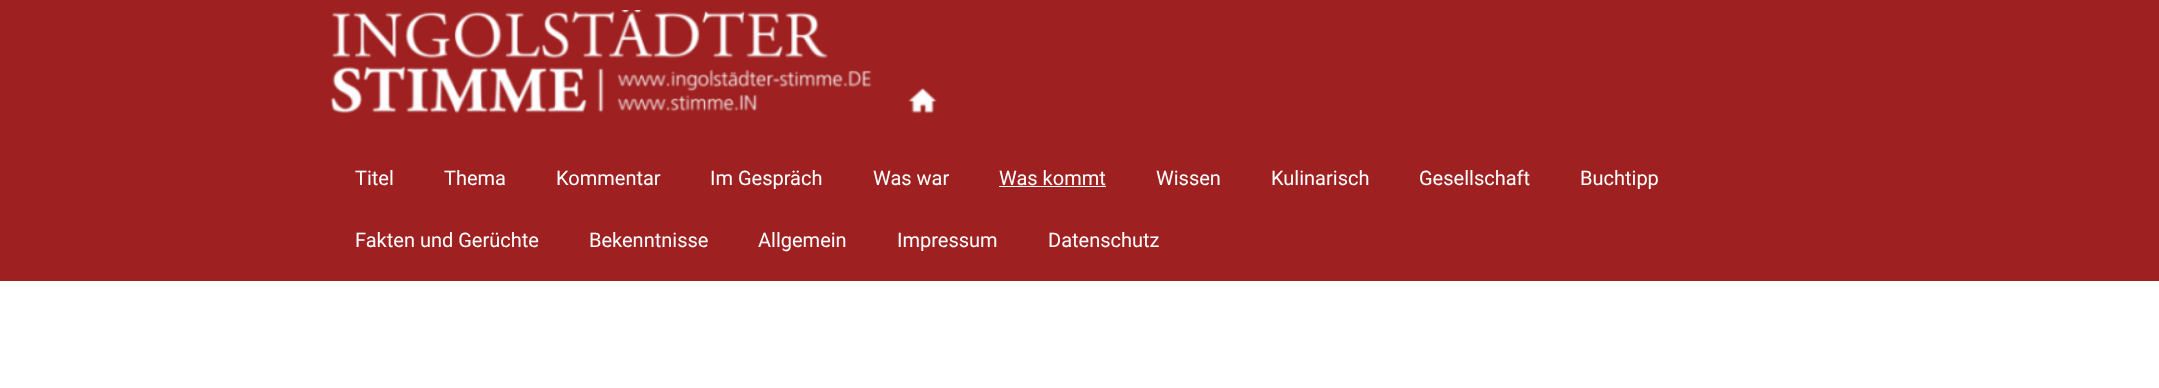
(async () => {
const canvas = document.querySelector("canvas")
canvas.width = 2159
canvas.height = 388
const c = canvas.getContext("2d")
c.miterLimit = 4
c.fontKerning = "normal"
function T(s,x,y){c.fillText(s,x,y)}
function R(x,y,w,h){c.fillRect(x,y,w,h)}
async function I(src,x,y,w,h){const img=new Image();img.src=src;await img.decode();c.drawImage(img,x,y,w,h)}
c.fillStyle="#fff"
R(0,0,2159,388)
c.fillStyle="#9e2020"
R(0,0,2159,281)
await I("1.png",330,10,607,104)
c.font="20px Roboto"
c.fillStyle="#fff"
T("Titel",355,185)
T("Thema",444,185)
T("Kommentar",556,185)
T("Im Gespräch",710,185)
T("Was war",873,185)
T("Was kommt",999,185)
R(999,186,107,1)
T("Wissen",1156,185)
T("Kulinarisch",1271,185)
T("Gesellschaft",1419,185)
T("Buchtipp",1580,185)
T("Fakten und Gerüchte",355,247)
T("Bekenntnisse",589,247)
T("Allgemein",758,247)
T("Impressum",897,247)
T("Datenschutz",1048,247)
})()
